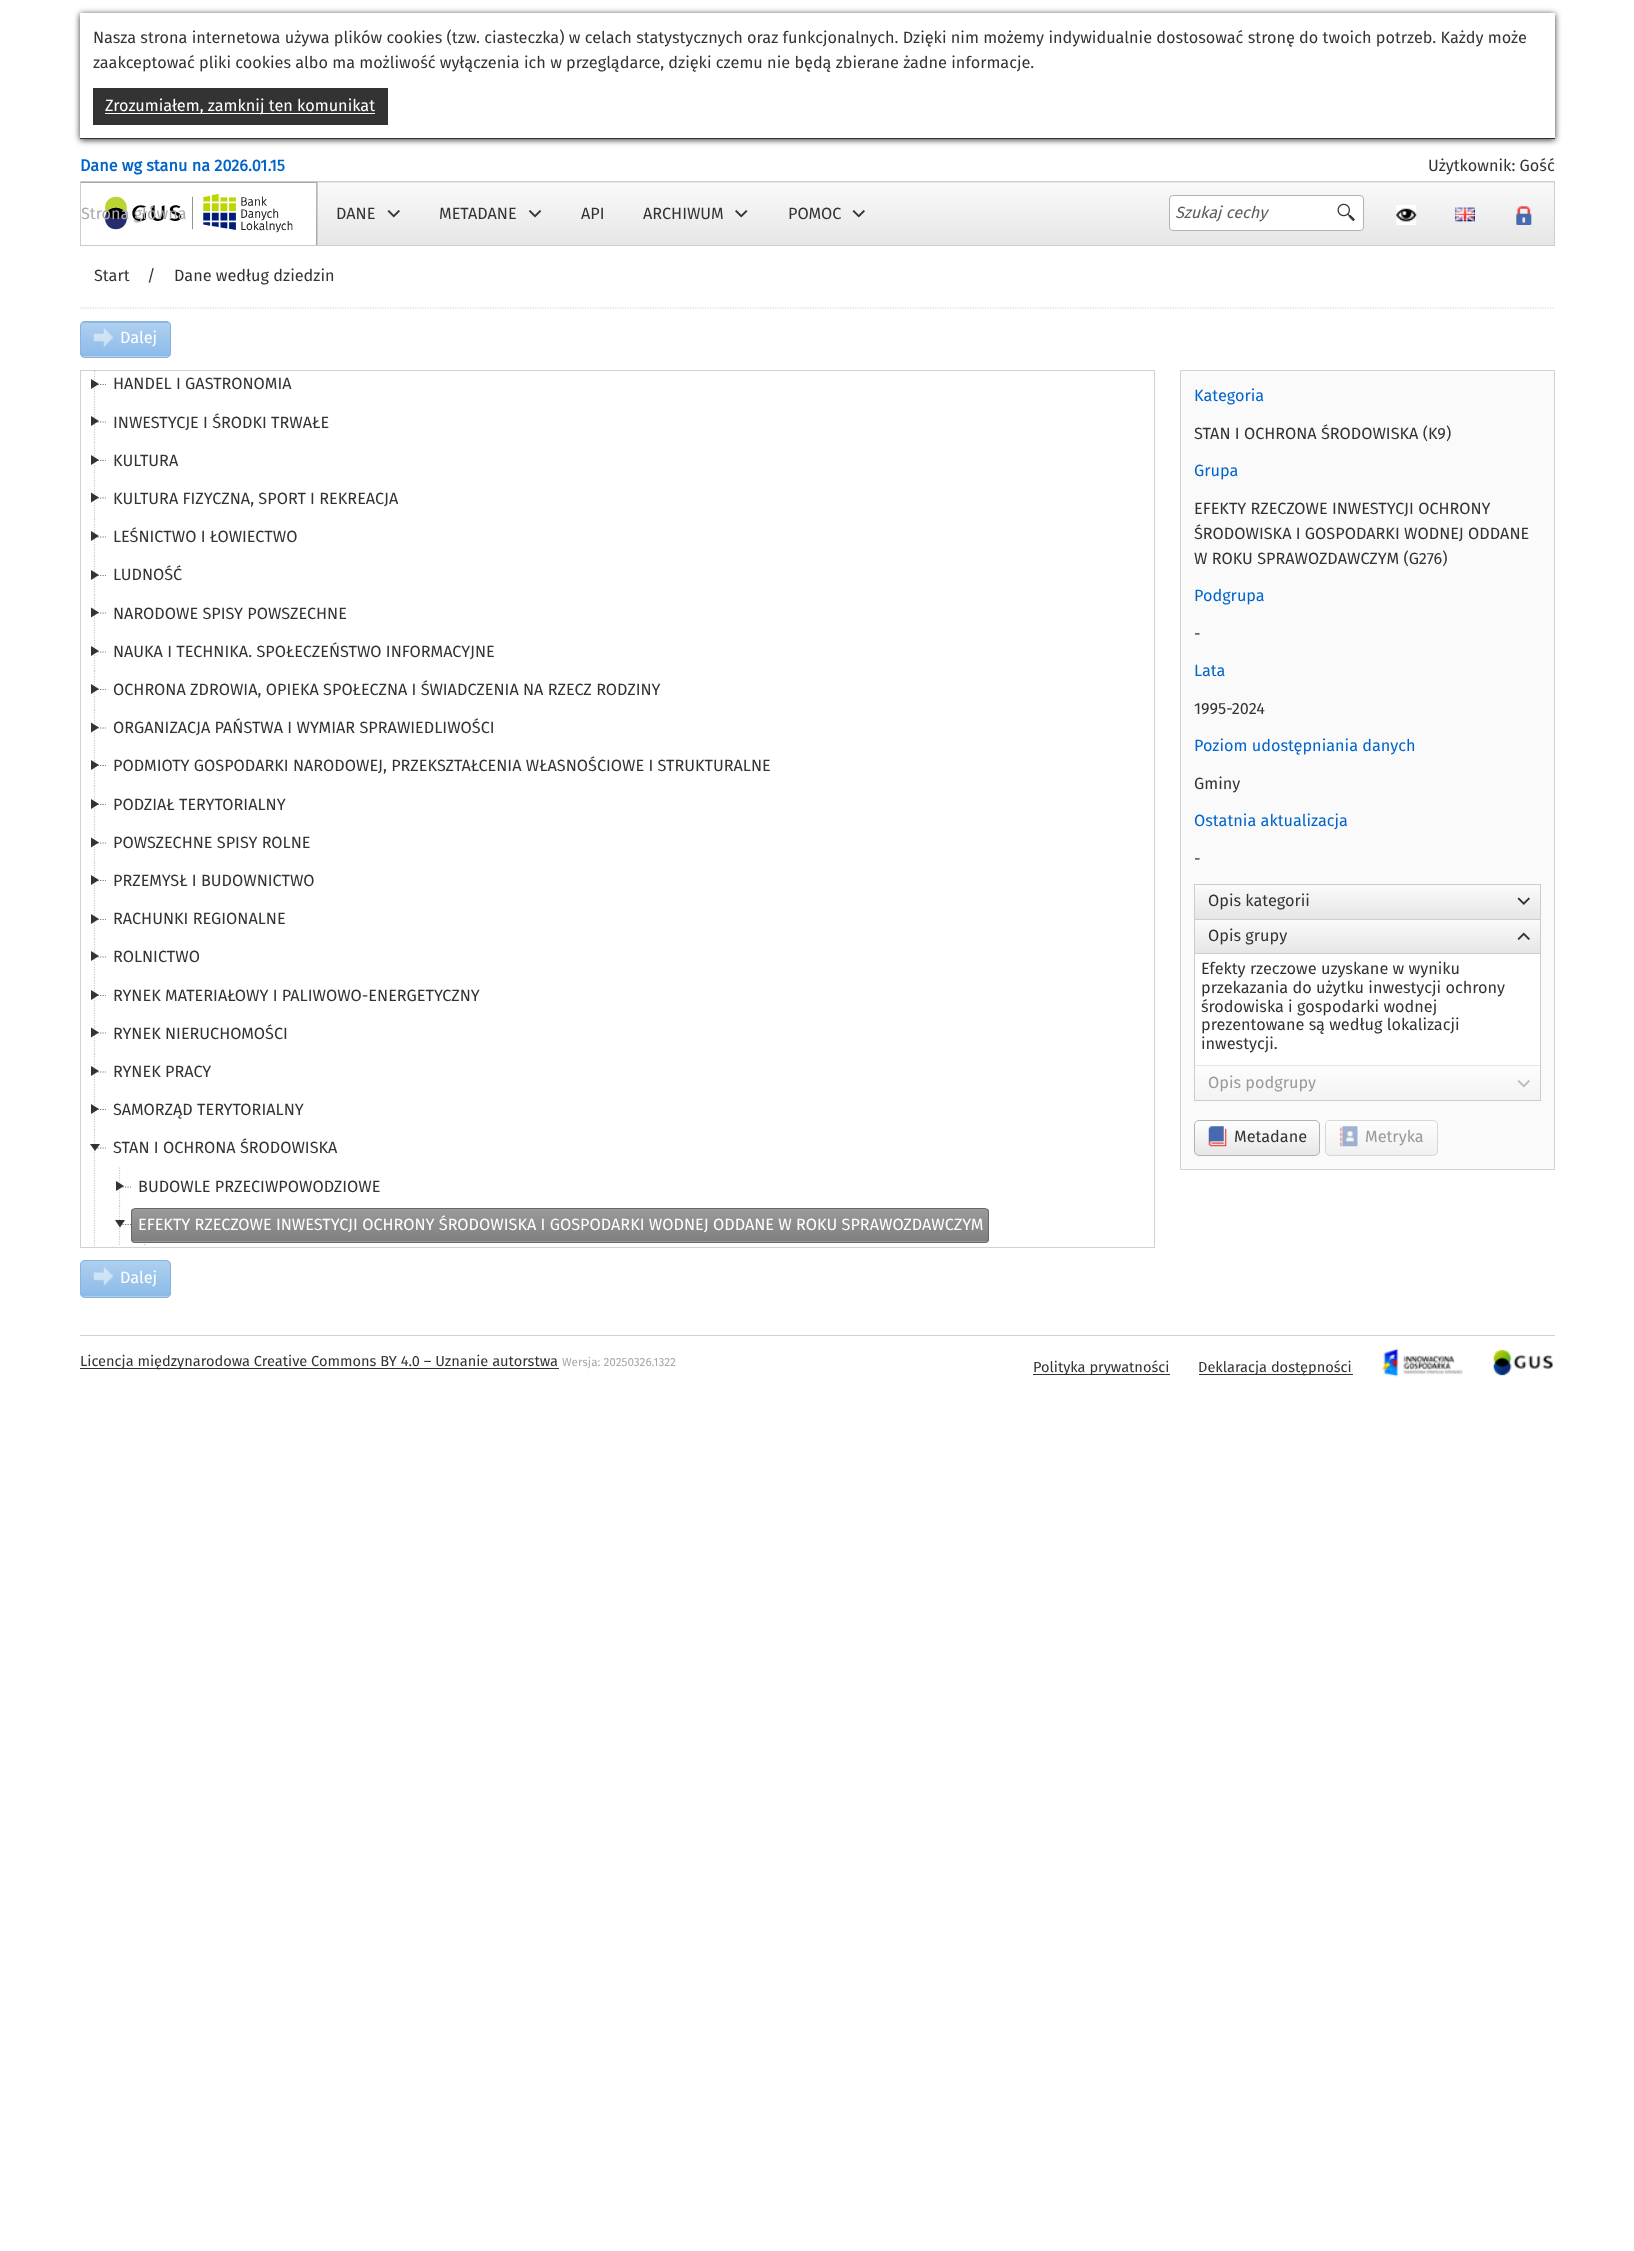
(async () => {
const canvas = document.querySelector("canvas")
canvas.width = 1634
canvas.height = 2251
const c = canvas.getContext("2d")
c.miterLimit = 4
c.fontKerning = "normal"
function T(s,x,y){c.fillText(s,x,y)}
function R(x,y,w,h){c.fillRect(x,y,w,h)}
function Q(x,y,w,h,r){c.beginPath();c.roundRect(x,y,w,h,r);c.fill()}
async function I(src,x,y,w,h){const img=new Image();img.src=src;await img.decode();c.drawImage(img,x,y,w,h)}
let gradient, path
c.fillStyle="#fff"
R(0,0,1634,2251)
c.fillStyle="#333"
c.filter="blur(3px)"
c.beginPath()
c.rect(80,14,1475,126)
c.fill()
c.filter="none"
c.fillStyle="#fff"
R(80,13,1475,125)
c.fillStyle="#333"
R(80,138,1475,1)
c.font="16.25px Fira Sans"
T("Nasza strona internetowa używa plików cookies (tzw. ciasteczka) w celach statystycznych oraz funkcjonalnych. Dzięki nim możemy indywidualnie dostosować stronę do twoich potrzeb. Każdy może",93,43)
T("zaakceptować pliki cookies albo ma możliwość wyłączenia ich w przeglądarce, dzięki czemu nie będą zbierane żadne informacje.",93,68)
R(93,88,295,37)
c.fillStyle="#fff"
R(105,113,270,1)
T("Zrozumiałem, zamknij ten komunikat",105,111)
c.font="bold 16.25px Fira Sans"
c.fillStyle="#0064cb"
T("Dane wg stanu na 2026.01.15",80,171)
c.font="16.25px Fira Sans"
c.fillStyle="#333"
T("Użytkownik: Gość",1428,171)
c.fillStyle="#e6e6e6"
R(318,182,1236,1)
gradient = c.createLinearGradient(818,182,818,245)
gradient.addColorStop(0,"#fafafa")
gradient.addColorStop(1,"#e6e6e6")
c.fillStyle = gradient
R(318,183,1236,62)
c.strokeStyle="#cdcdcd"
c.strokeRect(80.5,181.5,1474,64)
c.fillStyle="#a6a6a6"
R(81,182,236,1)
gradient = c.createLinearGradient(199,183,199,245)
gradient.addColorStop(0,"#bbb")
gradient.addColorStop(1,"#a6a6a6")
c.fillStyle = gradient
R(316,183,1,62)
c.strokeStyle="#ccc"
c.strokeRect(80.5,181.5,237,64)
await I("1.png",105,194,188,39)
c.fillStyle="#aaa"
T("Strona główna",81,219)
c.fillStyle="#333"
T("DANE",336,219)
await I("2.png",387,210,13,8)
T("METADANE",439,219)
await I("3.png",528,210,14,8)
T("API",581,219)
T("ARCHIWUM",643,219)
await I("4.png",735,210,13,8)
T("POMOC",788,219)
await I("2.png",852,210,13,8)
c.fillStyle="#fff"
c.beginPath()
c.roundRect(1169.5,195.5,194,35,3.5)
c.fill()
c.strokeStyle="#b3b3b3"
c.stroke()
c.font="italic 16.25px Fira Sans"
c.fillStyle="#5c5c5c"
T("Szukaj cechy",1175,218)
await I("5.png",1337,203,18,19)
await I("6.png",1396,205,21,20)
await I("7.png",1455,207,20,15)
await I("8.png",1516,206,16,19)
path = new Path2D("M80 308h1475")
c.strokeStyle="#d1d1d1"
c.lineWidth=1.2
c.setLineDash([1.25,1.25])
c.stroke(path)
c.font="16.25px Fira Sans"
c.fillStyle="#333"
T("Start",94,281)
T("/",147,281)
T("Dane według dziedzin",174,281)
c.fillStyle="#8cbbe9"
Q(80,321,91,37,5)
c.save()
c.beginPath()
c.roundRect(80,321,91,37,5)
c.clip()
gradient = c.createLinearGradient(126,323,126,356)
gradient.addColorStop(0,"#ffffff4d")
gradient.addColorStop(1,"#ffffff00")
c.fillStyle = gradient
R(80,323,91,31)
gradient = c.createLinearGradient(126,356,126,390)
gradient.addColorStop(0,"#ffffff4d")
gradient.addColorStop(1,"#ffffff00")
c.fillStyle = gradient
R(80,356,91,2)
c.restore()
c.beginPath()
c.roundRect(80.5,321.5,90,36,4.5)
c.strokeStyle="#8bb3db"
c.lineWidth=1
c.setLineDash([])
c.stroke()
await I("9.png",93,328,21,20)
c.fillStyle="#fff"
T("Dalej",120,343)
c.strokeStyle="#d1d1d1"
c.strokeRect(80.5,370.5,1074,877)
c.save()
c.beginPath()
c.rect(81,371,1073,33)
c.clip()
path = new Path2D("M94.5 366v38")
c.strokeStyle="#ccc"
c.lineWidth=1.2
c.setLineDash([1.25,1.25])
c.stroke(path)
c.restore()
path = new Path2D("M95 384.5h11")
c.strokeStyle="#7b7b7b"
c.lineWidth=1.2
c.setLineDash([1.25,1.25])
c.stroke(path)
c.fillStyle="#333"
path = new Path2D("M99 384l-8 5v-10z")
c.fill(path)
T("HANDEL I GASTRONOMIA",113,389)
path = new Path2D("M94.5 404v38.5")
c.strokeStyle="#ccc"
c.stroke(path)
path = new Path2D("M95 422h11")
c.strokeStyle="#7b7b7b"
c.stroke(path)
path = new Path2D("M99 421l-8 5v-10z")
c.fill(path)
T("INWESTYCJE I ŚRODKI TRWAŁE",113,428)
path = new Path2D("M94.5 442.5v37.5")
c.strokeStyle="#ccc"
c.stroke(path)
path = new Path2D("M95 460.5h11")
c.strokeStyle="#7b7b7b"
c.stroke(path)
path = new Path2D("M99 460l-8 5v-10z")
c.fill(path)
T("KULTURA",113,466)
path = new Path2D("M94.5 480v39")
c.strokeStyle="#ccc"
c.stroke(path)
path = new Path2D("M95 498h11")
c.strokeStyle="#7b7b7b"
c.stroke(path)
path = new Path2D("M99 497.5l-8 5v-10z")
c.fill(path)
T("KULTURA FIZYCZNA, SPORT I REKREACJA",113,504)
path = new Path2D("M94.5 519v37")
c.strokeStyle="#ccc"
c.stroke(path)
path = new Path2D("M95 537h11")
c.strokeStyle="#7b7b7b"
c.stroke(path)
path = new Path2D("M99 536l-8 5v-10z")
c.fill(path)
T("LEŚNICTWO I ŁOWIECTWO",113,542)
path = new Path2D("M94.5 556v39")
c.strokeStyle="#ccc"
c.stroke(path)
path = new Path2D("M95 575.5h11")
c.strokeStyle="#7b7b7b"
c.stroke(path)
path = new Path2D("M99 575l-8 5v-10z")
c.fill(path)
T("LUDNOŚĆ",113,580)
path = new Path2D("M94.5 595v37.5")
c.strokeStyle="#ccc"
c.stroke(path)
path = new Path2D("M95 613h11")
c.strokeStyle="#7b7b7b"
c.stroke(path)
path = new Path2D("M99 612.5l-8 5v-10z")
c.fill(path)
T("NARODOWE SPISY POWSZECHNE",113,619)
path = new Path2D("M94.5 632.5v38.5")
c.strokeStyle="#ccc"
c.stroke(path)
path = new Path2D("M95 652h11")
c.strokeStyle="#7b7b7b"
c.stroke(path)
path = new Path2D("M99 651l-8 5v-10z")
c.fill(path)
T("NAUKA I TECHNIKA. SPOŁECZEŃSTWO INFORMACYJNE",113,657)
path = new Path2D("M94.5 671v39")
c.strokeStyle="#ccc"
c.stroke(path)
path = new Path2D("M95 689.5h11")
c.strokeStyle="#7b7b7b"
c.stroke(path)
path = new Path2D("M99 689l-8 5v-10z")
c.fill(path)
T("OCHRONA ZDROWIA, OPIEKA SPOŁECZNA I ŚWIADCZENIA NA RZECZ RODZINY",113,695)
path = new Path2D("M94.5 710v37.5")
c.strokeStyle="#ccc"
c.stroke(path)
path = new Path2D("M95 728h11")
c.strokeStyle="#7b7b7b"
c.stroke(path)
path = new Path2D("M99 727.5l-8 5v-10z")
c.fill(path)
T("ORGANIZACJA PAŃSTWA I WYMIAR SPRAWIEDLIWOŚCI",113,733)
path = new Path2D("M94.5 747.5v38.5")
c.strokeStyle="#ccc"
c.stroke(path)
path = new Path2D("M95 765.5h11")
c.strokeStyle="#7b7b7b"
c.stroke(path)
path = new Path2D("M99 765l-8 5v-10z")
c.fill(path)
T("PODMIOTY GOSPODARKI NARODOWEJ, PRZEKSZTAŁCENIA WŁASNOŚCIOWE I STRUKTURALNE",113,771)
path = new Path2D("M94.5 786v38")
c.strokeStyle="#ccc"
c.stroke(path)
path = new Path2D("M95 804.5h11")
c.strokeStyle="#7b7b7b"
c.stroke(path)
path = new Path2D("M99 804l-8 5v-10z")
c.fill(path)
T("PODZIAŁ TERYTORIALNY",113,810)
path = new Path2D("M94.5 824v38.5")
c.strokeStyle="#ccc"
c.stroke(path)
path = new Path2D("M95 843h11")
c.strokeStyle="#7b7b7b"
c.stroke(path)
path = new Path2D("M99 842.5l-8 5v-10z")
c.fill(path)
T("POWSZECHNE SPISY ROLNE",113,848)
path = new Path2D("M94.5 862.5v37.5")
c.strokeStyle="#ccc"
c.stroke(path)
path = new Path2D("M95 880.5h11")
c.strokeStyle="#7b7b7b"
c.stroke(path)
path = new Path2D("M99 880l-8 5v-10z")
c.fill(path)
T("PRZEMYSŁ I BUDOWNICTWO",113,886)
path = new Path2D("M94.5 900v39")
c.strokeStyle="#ccc"
c.stroke(path)
path = new Path2D("M95 919.5h11")
c.strokeStyle="#7b7b7b"
c.stroke(path)
path = new Path2D("M99 919l-8 5v-10z")
c.fill(path)
T("RACHUNKI REGIONALNE",113,924)
path = new Path2D("M94.5 939v38.5")
c.strokeStyle="#ccc"
c.stroke(path)
path = new Path2D("M95 957h11")
c.strokeStyle="#7b7b7b"
c.stroke(path)
path = new Path2D("M99 956l-8 5v-10z")
c.fill(path)
T("ROLNICTWO",113,962)
path = new Path2D("M94.5 977.5v37.5")
c.strokeStyle="#ccc"
c.stroke(path)
path = new Path2D("M95 995.5h11")
c.strokeStyle="#7b7b7b"
c.stroke(path)
path = new Path2D("M99 995l-8 5v-10z")
c.fill(path)
T("RYNEK MATERIAŁOWY I PALIWOWO-ENERGETYCZNY",113,1001)
path = new Path2D("M94.5 1015v39")
c.strokeStyle="#ccc"
c.stroke(path)
path = new Path2D("M95 1033h11")
c.strokeStyle="#7b7b7b"
c.stroke(path)
path = new Path2D("M99 1032.5l-8 5v-10z")
c.fill(path)
T("RYNEK NIERUCHOMOŚCI",113,1039)
path = new Path2D("M94.5 1054v37")
c.strokeStyle="#ccc"
c.stroke(path)
path = new Path2D("M95 1072h11")
c.strokeStyle="#7b7b7b"
c.stroke(path)
path = new Path2D("M99 1071l-8 5v-10z")
c.fill(path)
T("RYNEK PRACY",113,1077)
path = new Path2D("M94.5 1091v39")
c.strokeStyle="#ccc"
c.stroke(path)
path = new Path2D("M95 1109.5h11")
c.strokeStyle="#7b7b7b"
c.stroke(path)
path = new Path2D("M99 1109l-8 5v-10z")
c.fill(path)
T("SAMORZĄD TERYTORIALNY",113,1115)
c.save()
c.beginPath()
c.rect(81,1130,1073,116)
c.clip()
path = new Path2D("M94.5 1130v992.5")
c.strokeStyle="#ccc"
c.stroke(path)
c.restore()
path = new Path2D("M95 1148h11")
c.stroke(path)
path = new Path2D("M95 1151l-5-7h10z")
c.fill(path)
T("STAN I OCHRONA ŚRODOWISKA",113,1153)
path = new Path2D("M119.5 1167.5v38.5")
c.strokeStyle="#ccc"
c.stroke(path)
path = new Path2D("M120 1187h11")
c.strokeStyle="#7b7b7b"
c.stroke(path)
path = new Path2D("M124 1186l-8 5v-10z")
c.fill(path)
T("BUDOWLE PRZECIWPOWODZIOWE",138,1192)
c.save()
c.beginPath()
c.rect(106,1206,914,40)
c.clip()
path = new Path2D("M119.5 1206v229")
c.strokeStyle="#ccc"
c.stroke(path)
c.restore()
path = new Path2D("M120 1224.5h11")
c.stroke(path)
path = new Path2D("M120 1227.5l-5-7.5h10z")
c.fill(path)
c.save()
c.beginPath()
c.roundRect(131,1208,858,35,4)
c.clip()
gradient = c.createLinearGradient(560,1209,560,1241)
gradient.addColorStop(0,"#9a9a9a")
gradient.addColorStop(1,"#808080")
c.fillStyle = gradient
R(131,1209,858,32)
gradient = c.createLinearGradient(560,1241,560,1274)
gradient.addColorStop(0,"#9a9a9a")
gradient.addColorStop(1,"#808080")
c.fillStyle = gradient
R(131,1241,858,2)
c.restore()
c.beginPath()
c.roundRect(131.5,1208.5,857,34,3.5)
c.strokeStyle="#676767"
c.lineWidth=1
c.setLineDash([])
c.stroke()
c.fillStyle="#fff"
T("EFEKTY RZECZOWE INWESTYCJI OCHRONY ŚRODOWISKA I GOSPODARKI WODNEJ ODDANE W ROKU SPRAWOZDAWCZYM",138,1230)
c.save()
c.beginPath()
c.rect(131,1244,722,2)
c.clip()
path = new Path2D("M144.5 1244v38.5")
c.strokeStyle="#ccc"
c.lineWidth=1.2
c.setLineDash([1.25,1.25])
c.stroke(path)
c.restore()
c.fillStyle="#fafafa"
c.beginPath()
c.rect(1180.5,370.5,374,799)
c.fill()
c.strokeStyle="#d1d1d1"
c.stroke()
c.fillStyle="#0064cb"
T("Kategoria",1194,401)
c.fillStyle="#333"
T("STAN I OCHRONA ŚRODOWISKA (K9)",1194,439)
c.fillStyle="#0064cb"
T("Grupa",1194,476)
c.fillStyle="#333"
T("EFEKTY RZECZOWE INWESTYCJI OCHRONY",1194,514)
T("ŚRODOWISKA I GOSPODARKI WODNEJ ODDANE",1194,539)
T("W ROKU SPRAWOZDAWCZYM (G276)",1194,564)
c.fillStyle="#0064cb"
T("Podgrupa",1194,601)
c.fillStyle="#333"
T("-",1194,639)
c.fillStyle="#0064cb"
T("Lata",1194,676)
c.fillStyle="#333"
T("1995-2024",1194,714)
c.fillStyle="#0064cb"
T("Poziom udostępniania danych",1194,751)
c.fillStyle="#333"
T("Gminy",1194,789)
c.fillStyle="#0064cb"
T("Ostatnia aktualizacja",1194,826)
c.fillStyle="#333"
T("-",1194,864)
c.fillStyle="#fff"
R(1195,954,345,111)
c.strokeStyle="#ccc"
c.strokeRect(1194.5,884.5,346,216)
gradient = c.createLinearGradient(1368,885,1368,919)
gradient.addColorStop(0,"#fafafa")
gradient.addColorStop(1,"#e6e6e6")
c.fillStyle = gradient
R(1195,889,345,30)
c.fillStyle="#333"
T("Opis kategorii",1208,906)
await I("10.png",1517,897,13,8)
gradient = c.createLinearGradient(1368,920,1368,953)
gradient.addColorStop(0,"#fafafa")
gradient.addColorStop(1,"#e6e6e6")
c.fillStyle = gradient
R(1195,924,345,29)
c.fillStyle="#cdcdcd"
R(1195,919,345,1)
R(1195,953,345,1)
c.fillStyle="#333"
T("Opis grupy",1208,941)
await I("11.png",1517,932,13,8)
T("Efekty rzeczowe uzyskane w wyniku",1201,974)
T("przekazania do użytku inwestycji ochrony",1201,993)
T("środowiska i gospodarki wodnej",1201,1012)
T("prezentowane są według lokalizacji",1201,1030)
T("inwestycji.",1201,1049)
gradient = c.createLinearGradient(1368,1066,1368,1100)
gradient.addColorStop(0,"#fdfdfd")
gradient.addColorStop(1,"#f3f3f3")
c.fillStyle = gradient
R(1195,1066,345,34)
c.fillStyle="#e6e6e6"
R(1195,1065,345,1)
c.fillStyle="#999"
T("Opis podgrupy",1208,1088)
await I("12.png",1517,1080,13,8)
c.save()
c.beginPath()
c.roundRect(1194,1120,126,36,5)
c.clip()
gradient = c.createLinearGradient(1257,1121,1257,1155)
gradient.addColorStop(0,"#fff")
gradient.addColorStop(1,"#e6e6e6")
c.fillStyle = gradient
R(1194,1121,126,34)
c.restore()
c.beginPath()
c.roundRect(1194.5,1120.5,125,35,4.5)
c.strokeStyle="#b3b3b3"
c.stroke()
await I("13.png",1208,1126,19,21)
c.fillStyle="#333"
T("Metadane",1234,1142)
c.save()
c.beginPath()
c.roundRect(1325,1120,113,36,5)
c.clip()
gradient = c.createLinearGradient(1381,1121,1381,1155)
gradient.addColorStop(0,"#fdfdfd")
gradient.addColorStop(1,"#f0f0f0")
c.fillStyle = gradient
R(1325,1121,113,34)
c.restore()
c.beginPath()
c.roundRect(1325.5,1120.5,112,35,4.5)
c.strokeStyle="#d7d7d7"
c.stroke()
await I("14.png",1339,1126,19,21)
c.fillStyle="#999"
T("Metryka",1365,1142)
c.fillStyle="#8cbbe9"
Q(80,1260,91,38,5)
c.save()
c.beginPath()
c.roundRect(80,1260,91,38,5)
c.clip()
gradient = c.createLinearGradient(126,1261,126,1296)
gradient.addColorStop(0,"#ffffff4d")
gradient.addColorStop(1,"#ffffff00")
c.fillStyle = gradient
R(80,1261,91,32)
gradient = c.createLinearGradient(126,1296,126,1331)
gradient.addColorStop(0,"#ffffff4d")
gradient.addColorStop(1,"#ffffff00")
c.fillStyle = gradient
R(80,1296,91,2)
c.restore()
c.beginPath()
c.roundRect(80.5,1260.5,90,37,4.5)
c.strokeStyle="#8bb3db"
c.stroke()
await I("15.png",93,1266,21,20)
c.fillStyle="#fff"
T("Dalej",120,1283)
c.fillStyle="#d1d1d1"
R(80,1335,1475,1)
c.fillStyle="#333"
R(80,1368,479,1)
c.font="14.6px Fira Sans"
T("Licencja międzynarodowa Creative Commons BY 4.0 – Uznanie autorstwa",80,1366)
c.font="11.75px Fira Sans"
c.fillStyle="#aaa"
T("Wersja: 20250326.1322",562,1366)
c.fillStyle="#333"
R(1033,1374,137,1)
c.font="14.6px Fira Sans"
T("Polityka prywatności",1033,1372)
R(1199,1374,154,1)
T("Deklaracja dostępności",1198,1372)
await I("16.png",1381,1348,82,29)
await I("17.png",1493,1349,60,27)
})()
